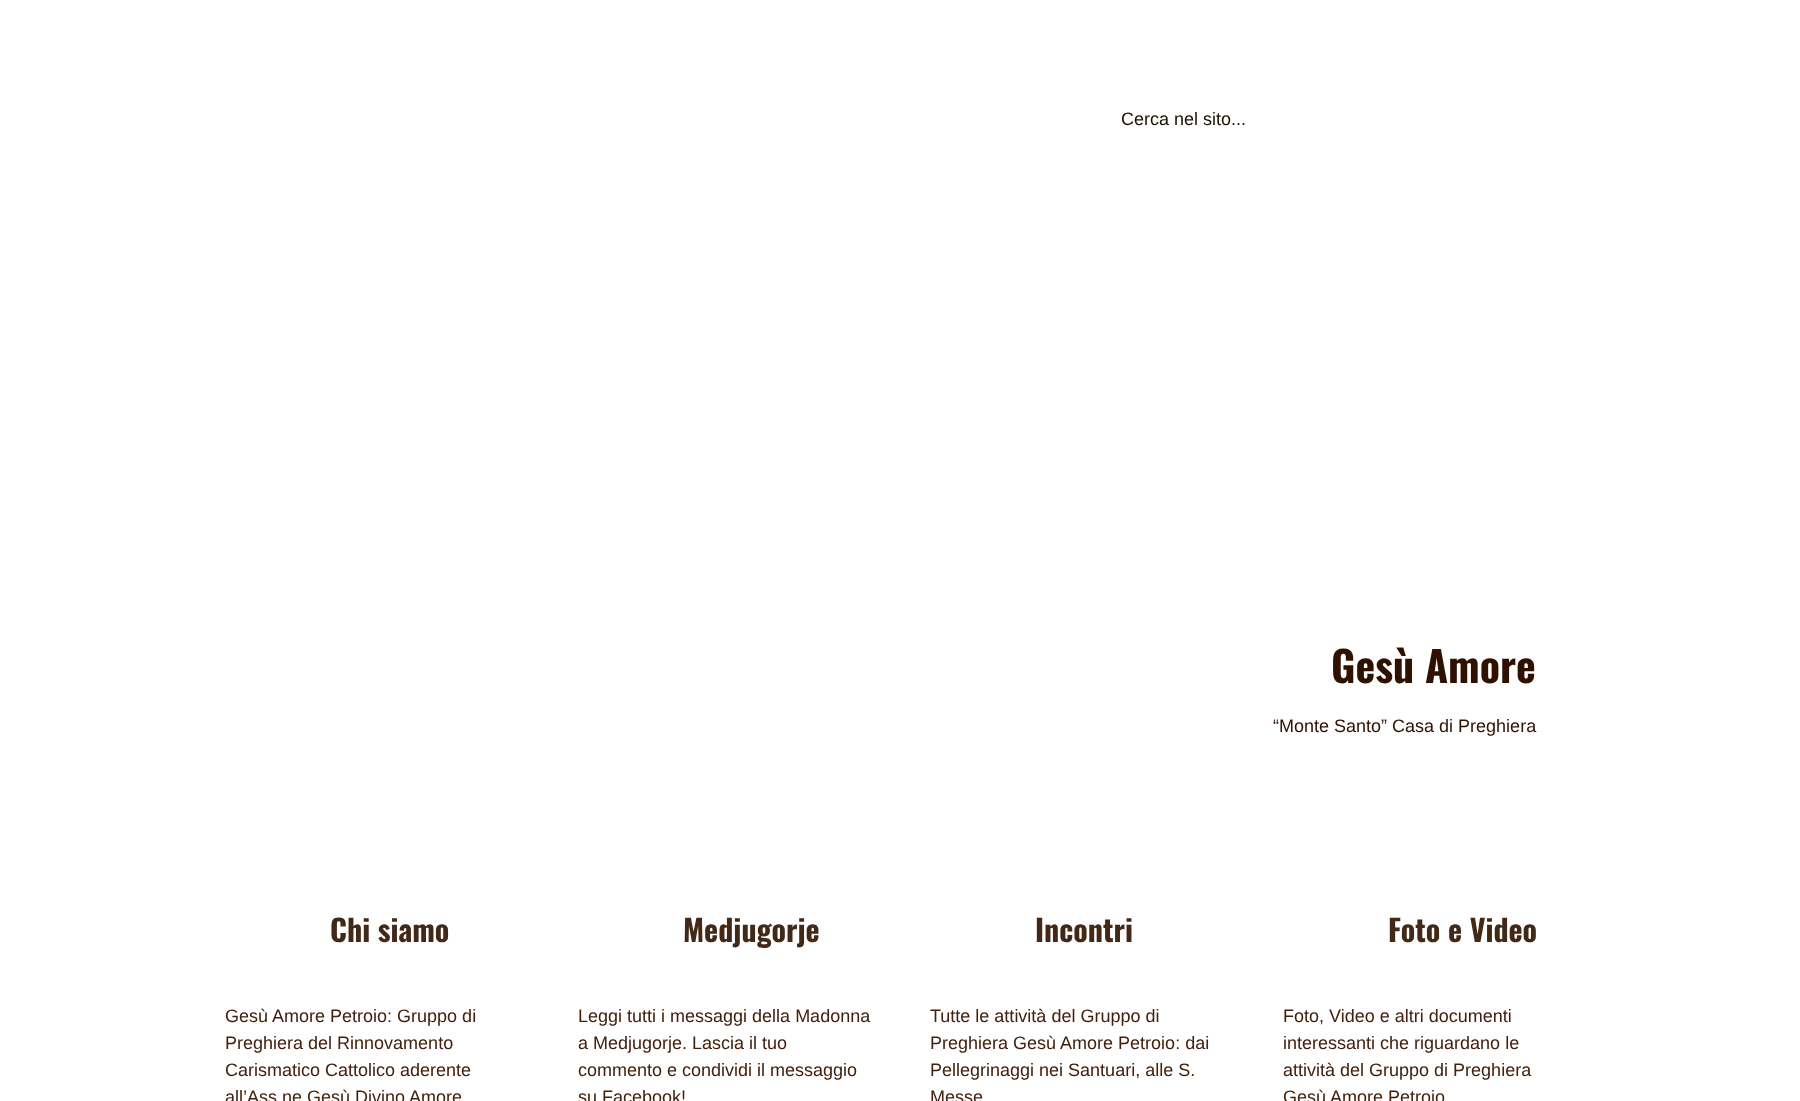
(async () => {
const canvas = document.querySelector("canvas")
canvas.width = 1800
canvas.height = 1101
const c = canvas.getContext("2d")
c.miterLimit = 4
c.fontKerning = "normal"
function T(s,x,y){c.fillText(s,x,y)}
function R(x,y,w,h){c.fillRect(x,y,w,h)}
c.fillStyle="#fff"
R(0,0,1800,1101)
c.font="18px Liberation Sans"
c.fillStyle="#1d1000"
T("Cerca nel sito...",1121,125)
c.font="bold 42px Oswald"
c.fillStyle="#2f1100"
T("Gesù Amore",1331,683)
c.font="18px Liberation Sans"
T("“Monte Santo” Casa di Preghiera",1273,732)
c.font="bold 30px Oswald"
c.fillStyle="#422817"
T("Chi siamo",330,942)
c.font="18px Liberation Sans"
c.fillStyle="#43200d"
T("Gesù Amore Petroio: Gruppo di",225,1022)
T("Preghiera del Rinnovamento",225,1049)
T("Carismatico Cattolico aderente",225,1076)
T("all’Ass.ne Gesù Divino Amore",225,1103)
c.font="bold 30px Oswald"
c.fillStyle="#422817"
T("Medjugorje",683,942)
c.font="18px Liberation Sans"
c.fillStyle="#43200d"
T("Leggi tutti i messaggi della Madonna",578,1022)
T("a Medjugorje. Lascia il tuo",578,1049)
T("commento e condividi il messaggio",578,1076)
T("su Facebook!",578,1103)
c.font="bold 30px Oswald"
c.fillStyle="#422817"
T("Incontri",1035,942)
c.font="18px Liberation Sans"
c.fillStyle="#43200d"
T("Tutte le attività del Gruppo di",930,1022)
T("Preghiera Gesù Amore Petroio: dai",930,1049)
T("Pellegrinaggi nei Santuari, alle S.",930,1076)
T("Messe",930,1103)
c.font="bold 30px Oswald"
c.fillStyle="#422817"
T("Foto e Video",1388,942)
c.font="18px Liberation Sans"
c.fillStyle="#43200d"
T("Foto, Video e altri documenti",1283,1022)
T("interessanti che riguardano le",1283,1049)
T("attività del Gruppo di Preghiera",1283,1076)
T("Gesù Amore Petroio",1283,1103)
})()
